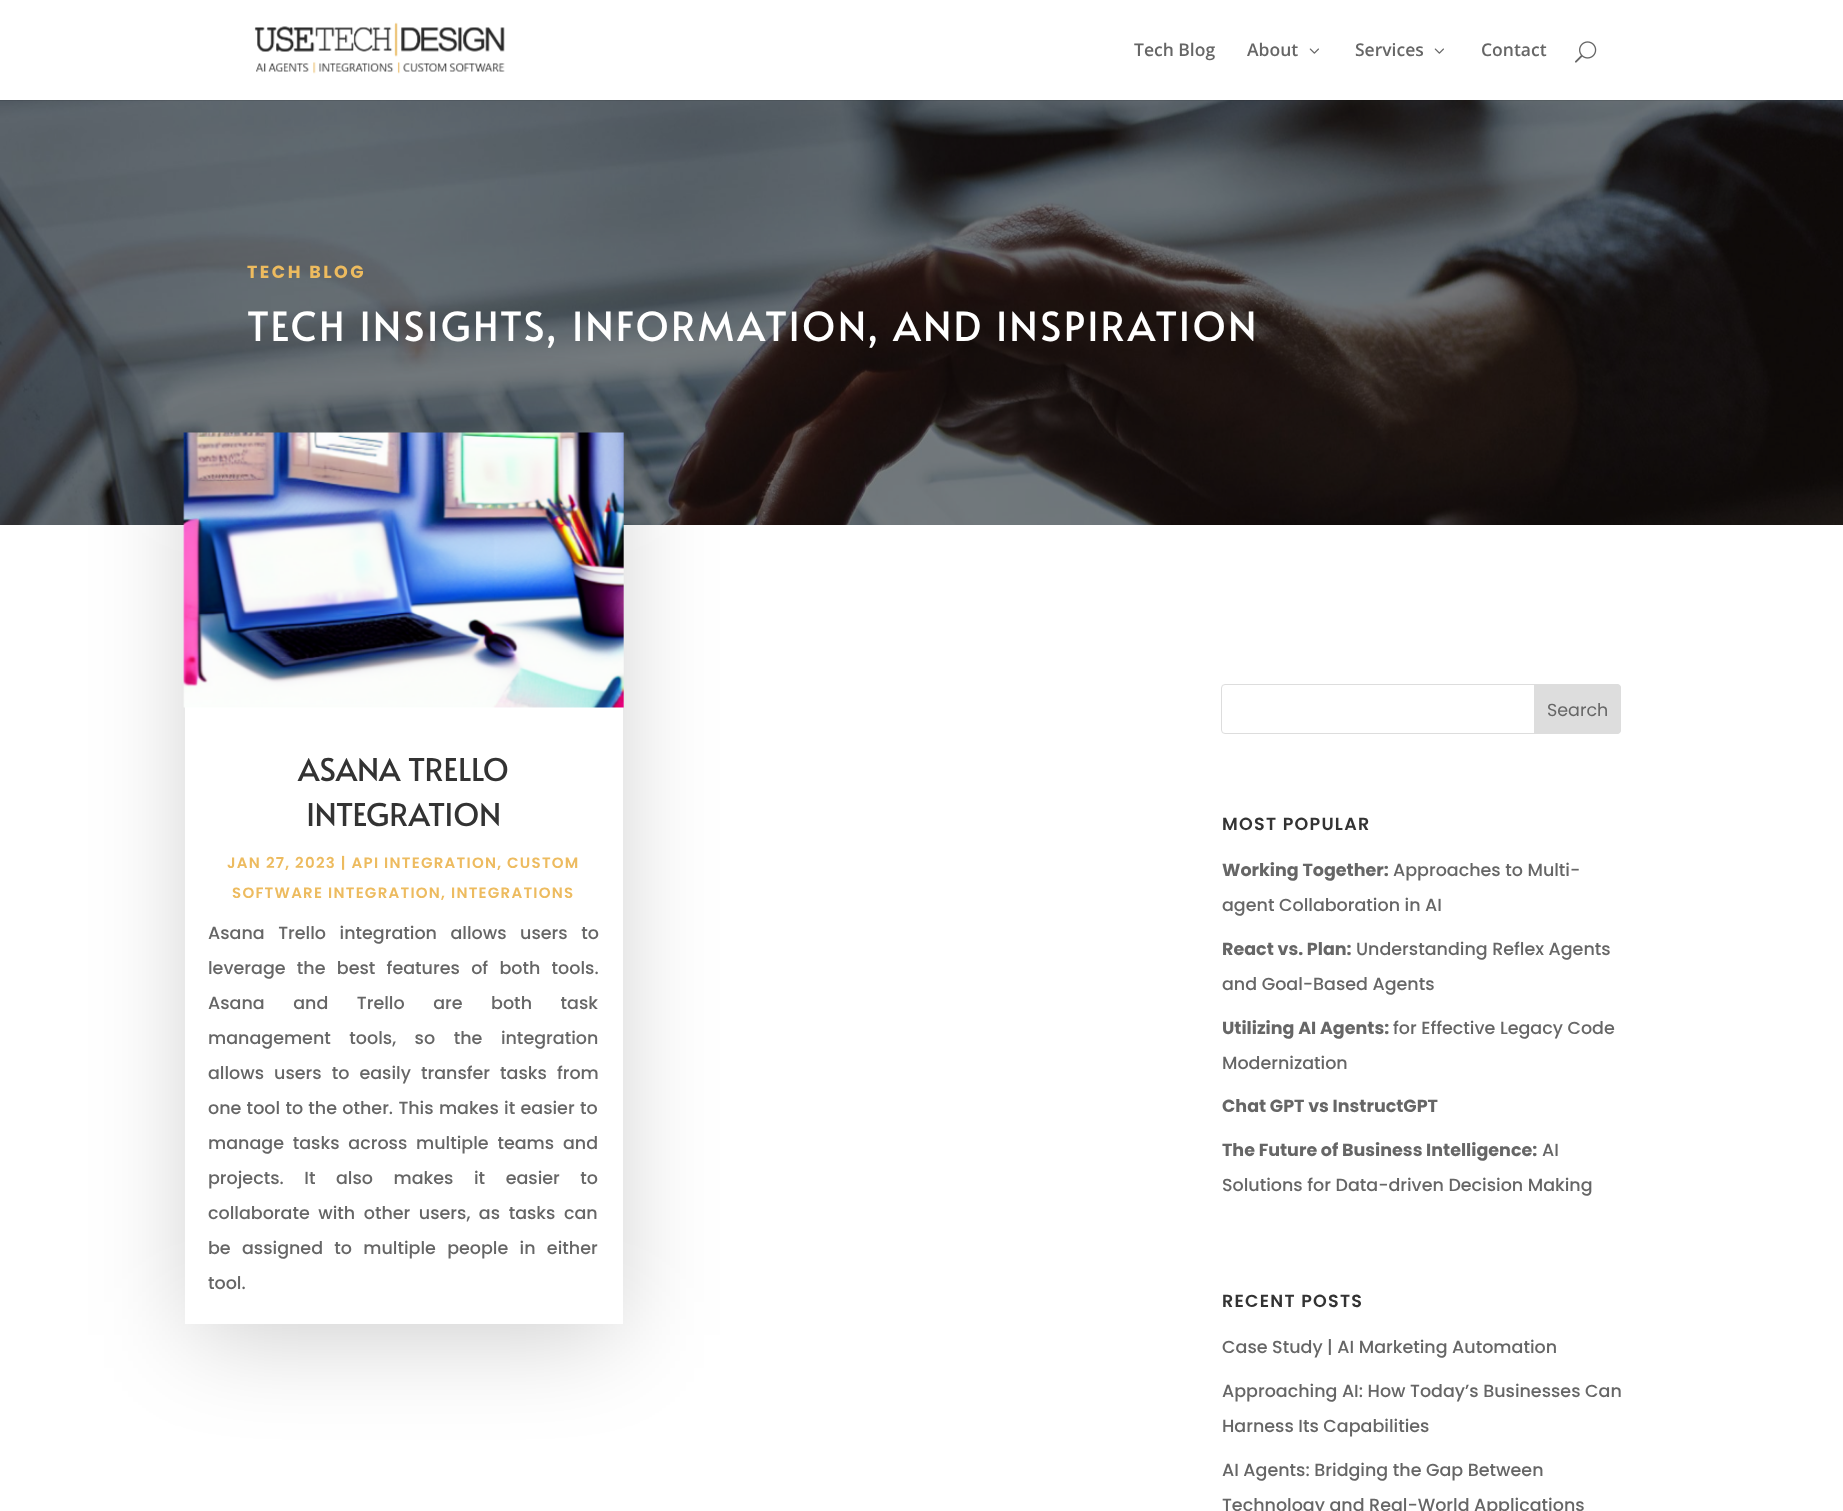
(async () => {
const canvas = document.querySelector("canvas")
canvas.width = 1843
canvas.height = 1511
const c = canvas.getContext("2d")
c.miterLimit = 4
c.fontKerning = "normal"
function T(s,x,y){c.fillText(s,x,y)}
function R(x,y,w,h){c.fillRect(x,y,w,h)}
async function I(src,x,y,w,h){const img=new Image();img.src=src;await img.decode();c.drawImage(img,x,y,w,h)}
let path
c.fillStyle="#fff"
R(0,0,1843,1511)
await I("4.png",0,100,1843,425)
c.fillStyle="#0000001a"
path = new Path2D("M0 100v1h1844v-100v99z")
c.fill(path)
await I("1.png",254,22,251,52)
c.font="600 17.5px Open Sans"
c.fillStyle="#666"
T("Tech Blog",1134,56)
T("About",1247,56)
await I("2.png",1309,48,10,6)
T("Services",1355,56)
await I("2.png",1434,48,10,6)
T("Contact",1481,56)
await I("3.png",1575,41,22,22)
c.letterSpacing="2.5px"
c.font="bold 17.5px Poppins"
c.fillStyle="#edbb5f"
T("TECH BLOG",247,278)
c.font="40px Alata"
c.fillStyle="#fff"
T("TECH INSIGHTS, INFORMATION, AND INSPIRATION",247,341)
c.fillStyle="#00000033"
c.filter="blur(50px)"
c.beginPath()
c.rect(193,460,422,875)
c.fill()
c.filter="none"
c.fillStyle="#fff"
R(185,707,438,617)
await I("5.png",183,432,441,276)
c.letterSpacing="0px"
c.font="31.25px Alata"
c.fillStyle="#333"
T("ASANA TRELLO",298,781)
T("INTEGRATION",306,826)
c.letterSpacing="1.25px"
c.font="600 15px Poppins"
c.fillStyle="#edbb5f"
T("JAN 27, 2023 | API INTEGRATION, CUSTOM",227,868)
T("SOFTWARE INTEGRATION, INTEGRATIONS",232,898)
c.letterSpacing="0px"
c.wordSpacing="9px"
c.font="500 17.5px Poppins"
c.fillStyle="#666"
T("Asana Trello integration allows users to",208,939)
c.wordSpacing="6.75px"
T("leverage the best features of both tools.",208,974)
c.wordSpacing="24px"
T("Asana and Trello are both task",208,1009)
c.wordSpacing="14px"
T("management tools, so the integration",208,1044)
c.wordSpacing="5.5px"
T("allows users to easily transfer tasks from",208,1079)
c.wordSpacing="0.75px"
T("one tool to the other. This makes it easier to",208,1114)
c.wordSpacing="4.25px"
T("manage tasks across multiple teams and",208,1149)
c.wordSpacing="16px"
T("projects. It also makes it easier to",208,1184)
c.wordSpacing="4px"
T("collaborate with other users, as tasks can",208,1219)
c.wordSpacing="6.75px"
T("be assigned to multiple people in either",208,1254)
c.wordSpacing="0px"
T("tool.",208,1289)
c.beginPath()
c.roundRect(1221.5,684.5,399,49,3.5)
c.strokeStyle="#ddd"
c.stroke()
c.fillStyle="#ddd"
c.beginPath()
c.roundRect(1534.5,684.5,86,49,[0,3.5,3.5,0])
c.fill()
c.stroke()
c.font="17.5px Poppins"
c.fillStyle="#666"
T("Search",1547,716)
c.letterSpacing="1.25px"
c.font="600 17.5px Poppins"
c.fillStyle="#333"
T("MOST POPULAR",1222,830)
c.letterSpacing="0px"
c.font="bold 17.5px Poppins"
c.fillStyle="#666"
T("Working Together:",1222,876)
c.font="500 17.5px Poppins"
T("Approaches to Multi-",1393,876)
T("agent Collaboration in AI",1222,911)
c.font="bold 17.5px Poppins"
T("React vs. Plan:",1222,955)
c.font="500 17.5px Poppins"
T("Understanding Reflex Agents",1356,955)
T("and Goal-Based Agents",1222,990)
c.font="bold 17.5px Poppins"
T("Utilizing AI Agents:",1222,1034)
c.font="500 17.5px Poppins"
T("for Effective Legacy Code",1393,1034)
T("Modernization",1222,1069)
c.font="bold 17.5px Poppins"
T("Chat GPT vs InstructGPT",1222,1112)
T("The Future of Business Intelligence:",1222,1156)
c.font="500 17.5px Poppins"
T("AI",1542,1156)
T("Solutions for Data-driven Decision Making",1222,1191)
c.letterSpacing="1.25px"
c.font="600 17.5px Poppins"
c.fillStyle="#333"
T("RECENT POSTS",1222,1307)
c.letterSpacing="0px"
c.font="500 17.5px Poppins"
c.fillStyle="#666"
T("Case Study | AI Marketing Automation",1222,1353)
T("Approaching AI: How Today’s Businesses Can",1222,1397)
T("Harness Its Capabilities",1222,1432)
T("AI Agents: Bridging the Gap Between",1222,1476)
T("Technology and Real-World Applications",1222,1511)
})()
